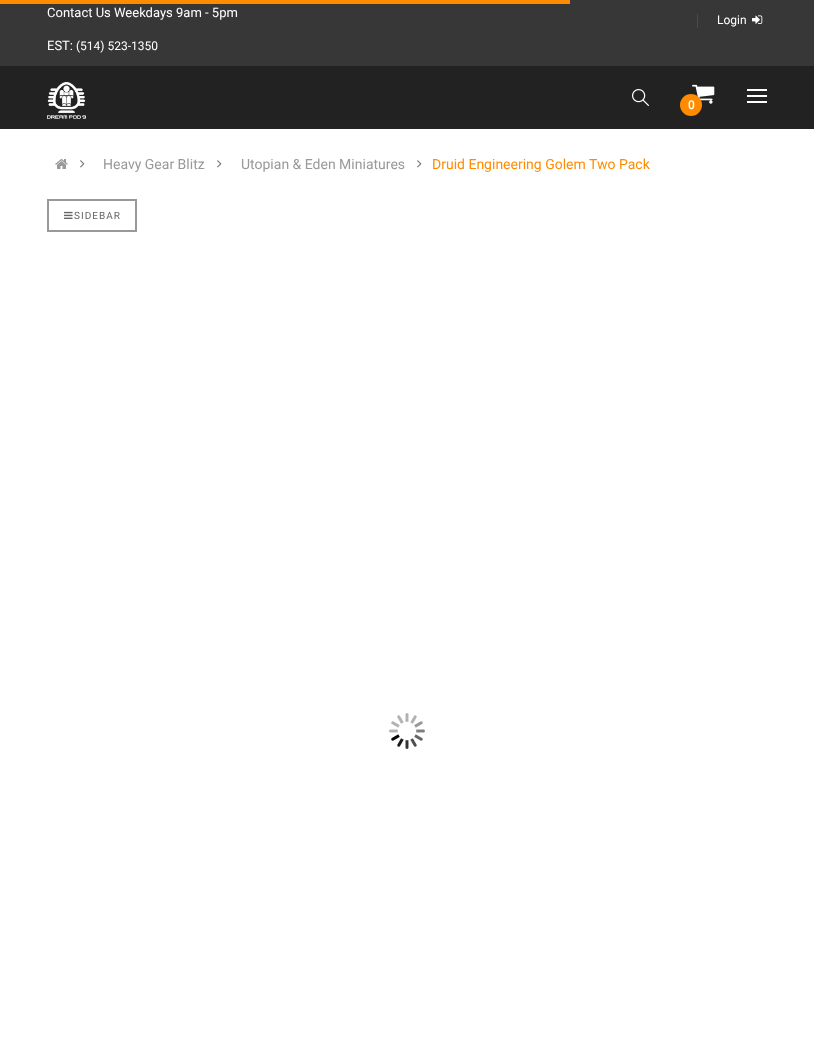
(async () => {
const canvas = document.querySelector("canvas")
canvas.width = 814
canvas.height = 1060
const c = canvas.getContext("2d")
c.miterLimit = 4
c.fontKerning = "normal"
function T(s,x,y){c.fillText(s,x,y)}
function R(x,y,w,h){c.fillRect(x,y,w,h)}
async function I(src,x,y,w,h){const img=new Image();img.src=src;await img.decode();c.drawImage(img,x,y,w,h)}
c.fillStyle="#fff"
R(0,0,814,1060)
c.fillStyle="#373737"
R(0,0,814,66)
c.fillStyle="#ff8c00"
R(0,0,570,4)
c.fillStyle="#222"
R(0,66,814,63)
c.font="13px Roboto"
c.fillStyle="#fff"
T("Contact Us Weekdays 9am - 5pm",47,17)
T("EST:",47,50)
c.font="12px Roboto"
T("(514) 523-1350",76,50)
c.fillStyle="#4b4b4b"
R(697,14,1,14)
c.fillStyle="#fff"
T("Login",717,24)
await I("1.png",752,15,11,9)
await I("2.png",47,82,39,37)
R(747,89,20,2)
R(747,95,20,2)
R(747,101,20,2)
await I("3.png",632,89,17,17)
await I("4.png",692,84,23,20)
c.fillStyle="#ff8c00"
c.beginPath()
c.arc(691,105,11,0,7)
c.fill()
c.font="500 12px Roboto"
c.fillStyle="#fff"
T("0",688,109)
await I("5.png",55,159,13,10)
await I("6.png",80,160,5,8)
c.font="14px Roboto"
c.fillStyle="#999"
T("Heavy Gear Blitz",103,169)
await I("6.png",217,160,5,8)
T("Utopian & Eden Miniatures",241,169)
await I("6.png",417,160,5,8)
c.fillStyle="#ff8c00"
T("Druid Engineering Golem Two Pack",432,169)
c.strokeStyle="#999"
c.lineWidth=2
c.strokeRect(48,200,88,31)
await I("7.png",64,211,9,8)
c.letterSpacing="1px"
c.font="10px Roboto"
c.fillStyle="#666"
T("SIDEBAR",74,219)
await I("8.png",389,713,36,36)
})()
